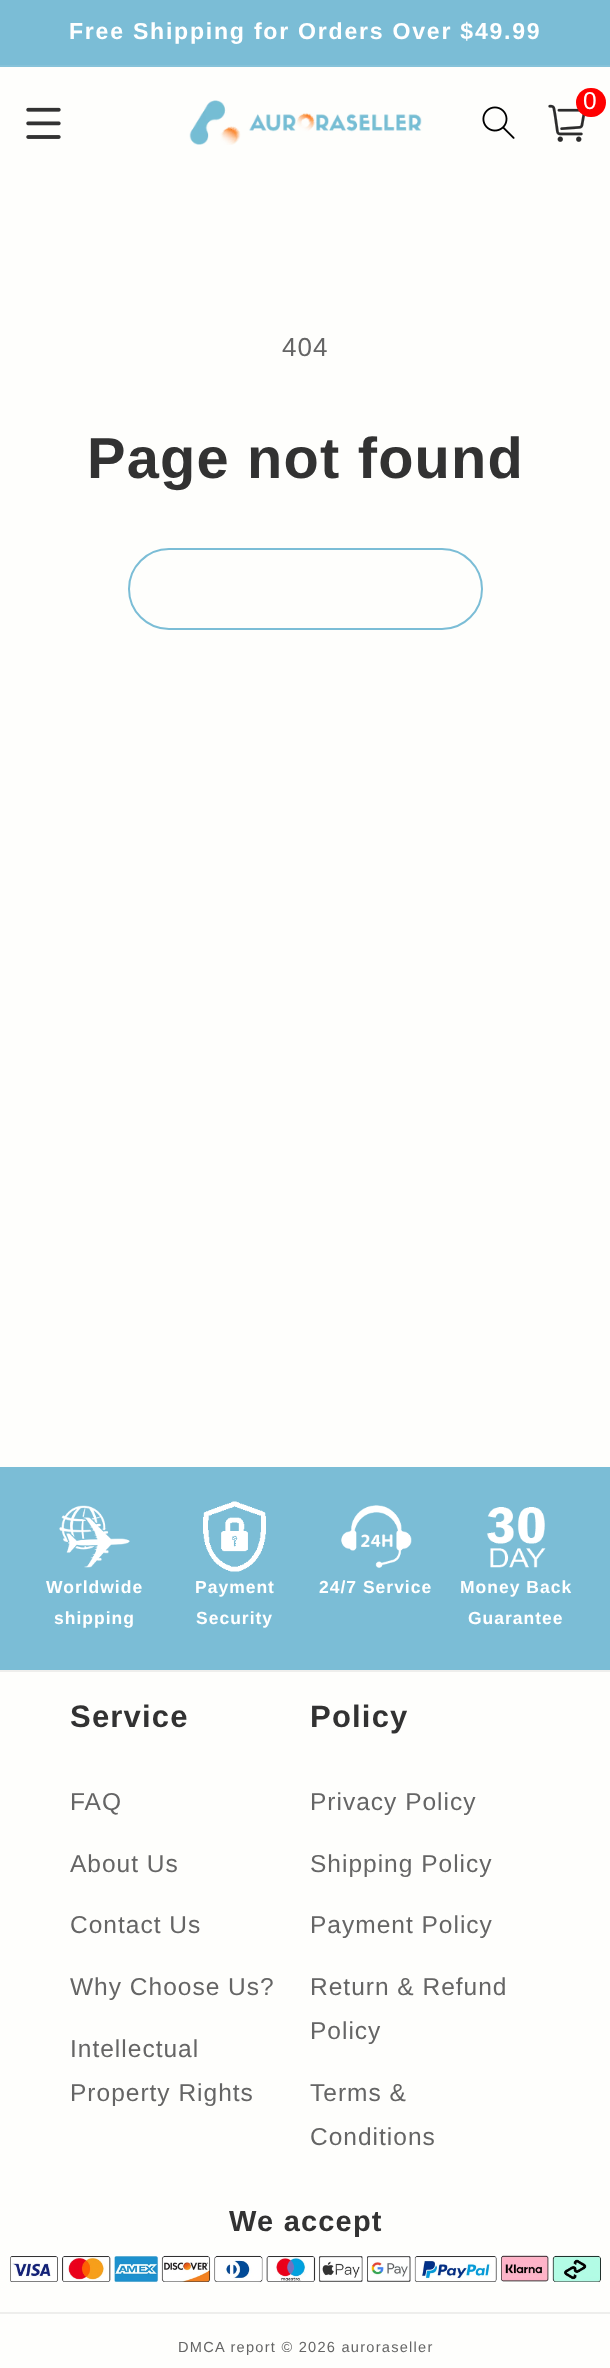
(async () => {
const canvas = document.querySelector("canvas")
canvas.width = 610
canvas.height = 2368
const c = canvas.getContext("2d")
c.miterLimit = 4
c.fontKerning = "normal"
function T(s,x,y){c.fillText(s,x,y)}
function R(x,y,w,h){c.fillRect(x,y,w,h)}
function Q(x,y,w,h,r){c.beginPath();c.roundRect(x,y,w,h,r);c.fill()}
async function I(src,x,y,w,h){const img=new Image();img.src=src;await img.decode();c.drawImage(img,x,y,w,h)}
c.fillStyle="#fefefc"
R(0,0,610,2368)
c.fillStyle="#7bbdd6"
R(0,0,610,65)
c.fillStyle="#86c2d9"
R(0,65,610,2)
c.letterSpacing="1.75px"
c.font="bold 23.1px Liberation Sans"
c.fillStyle="#fff"
T("Free Shipping for Orders Over $49.99",69,39)
await I("1.png",26,107,35,32)
await I("2.png",189,100,233,45)
await I("3.png",548,104,38,38)
c.fillStyle="#f00"
Q(576,88,30,29,14.5)
c.letterSpacing="1px"
c.font="24.5px Liberation Sans"
c.fillStyle="#fff"
T("0",583,109)
await I("4.png",482,106,33,33)
c.font="26px Liberation Sans"
c.fillStyle="#656565"
T("404",282,356)
c.letterSpacing="1.2px"
c.font="bold 57.75px Liberation Sans"
c.fillStyle="#323232"
T("Page not found",87,478)
c.beginPath()
c.roundRect(129,549,353,80,40)
c.strokeStyle="#7bbdd6"
c.lineWidth=2
c.stroke()
c.fillStyle="#7bbdd6"
R(0,1467,610,203)
await I("5.png",59,1505,71,63)
c.letterSpacing="1px"
c.font="bold 17.5px Liberation Sans"
c.fillStyle="#fff"
T("Worldwide",46,1593)
T("shipping",54,1624)
await I("6.png",203,1501,63,71)
T("Payment",195,1593)
T("Security",196,1624)
await I("7.png",341,1505,71,63)
T("24/7 Service",319,1593)
await I("8.png",487,1507,59,61)
T("Money Back",460,1593)
T("Guarantee",468,1624)
c.fillStyle="#eeeeec"
R(0,1670,610,2)
c.letterSpacing="1.2px"
c.font="bold 31px Liberation Sans"
c.fillStyle="#323232"
T("Service",70,1727)
c.letterSpacing="1px"
c.font="24.5px Liberation Sans"
c.fillStyle="#656565"
T("FAQ",70,1810)
T("About Us",70,1872)
T("Contact Us",70,1933)
T("Why Choose Us?",70,1995)
T("Intellectual",70,2057)
T("Property Rights",70,2101)
c.letterSpacing="1.2px"
c.font="bold 31px Liberation Sans"
c.fillStyle="#323232"
T("Policy",310,1727)
c.letterSpacing="1px"
c.font="24.5px Liberation Sans"
c.fillStyle="#656565"
T("Privacy Policy",310,1810)
T("Shipping Policy",310,1872)
T("Payment Policy",310,1933)
T("Return & Refund",310,1995)
T("Policy",310,2039)
T("Terms &",310,2101)
T("Conditions",310,2145)
c.letterSpacing="1.2px"
c.font="bold 29px Liberation Sans"
c.fillStyle="#323232"
T("We accept",229,2231)
await I("9.png",10,2255,591,28)
c.fillStyle="#eeeeec"
R(0,2312,610,2)
c.letterSpacing="1.25px"
c.font="14.6px Liberation Sans"
c.fillStyle="#656565"
T("DMCA report © 2026 auroraseller",178,2352)
})()
